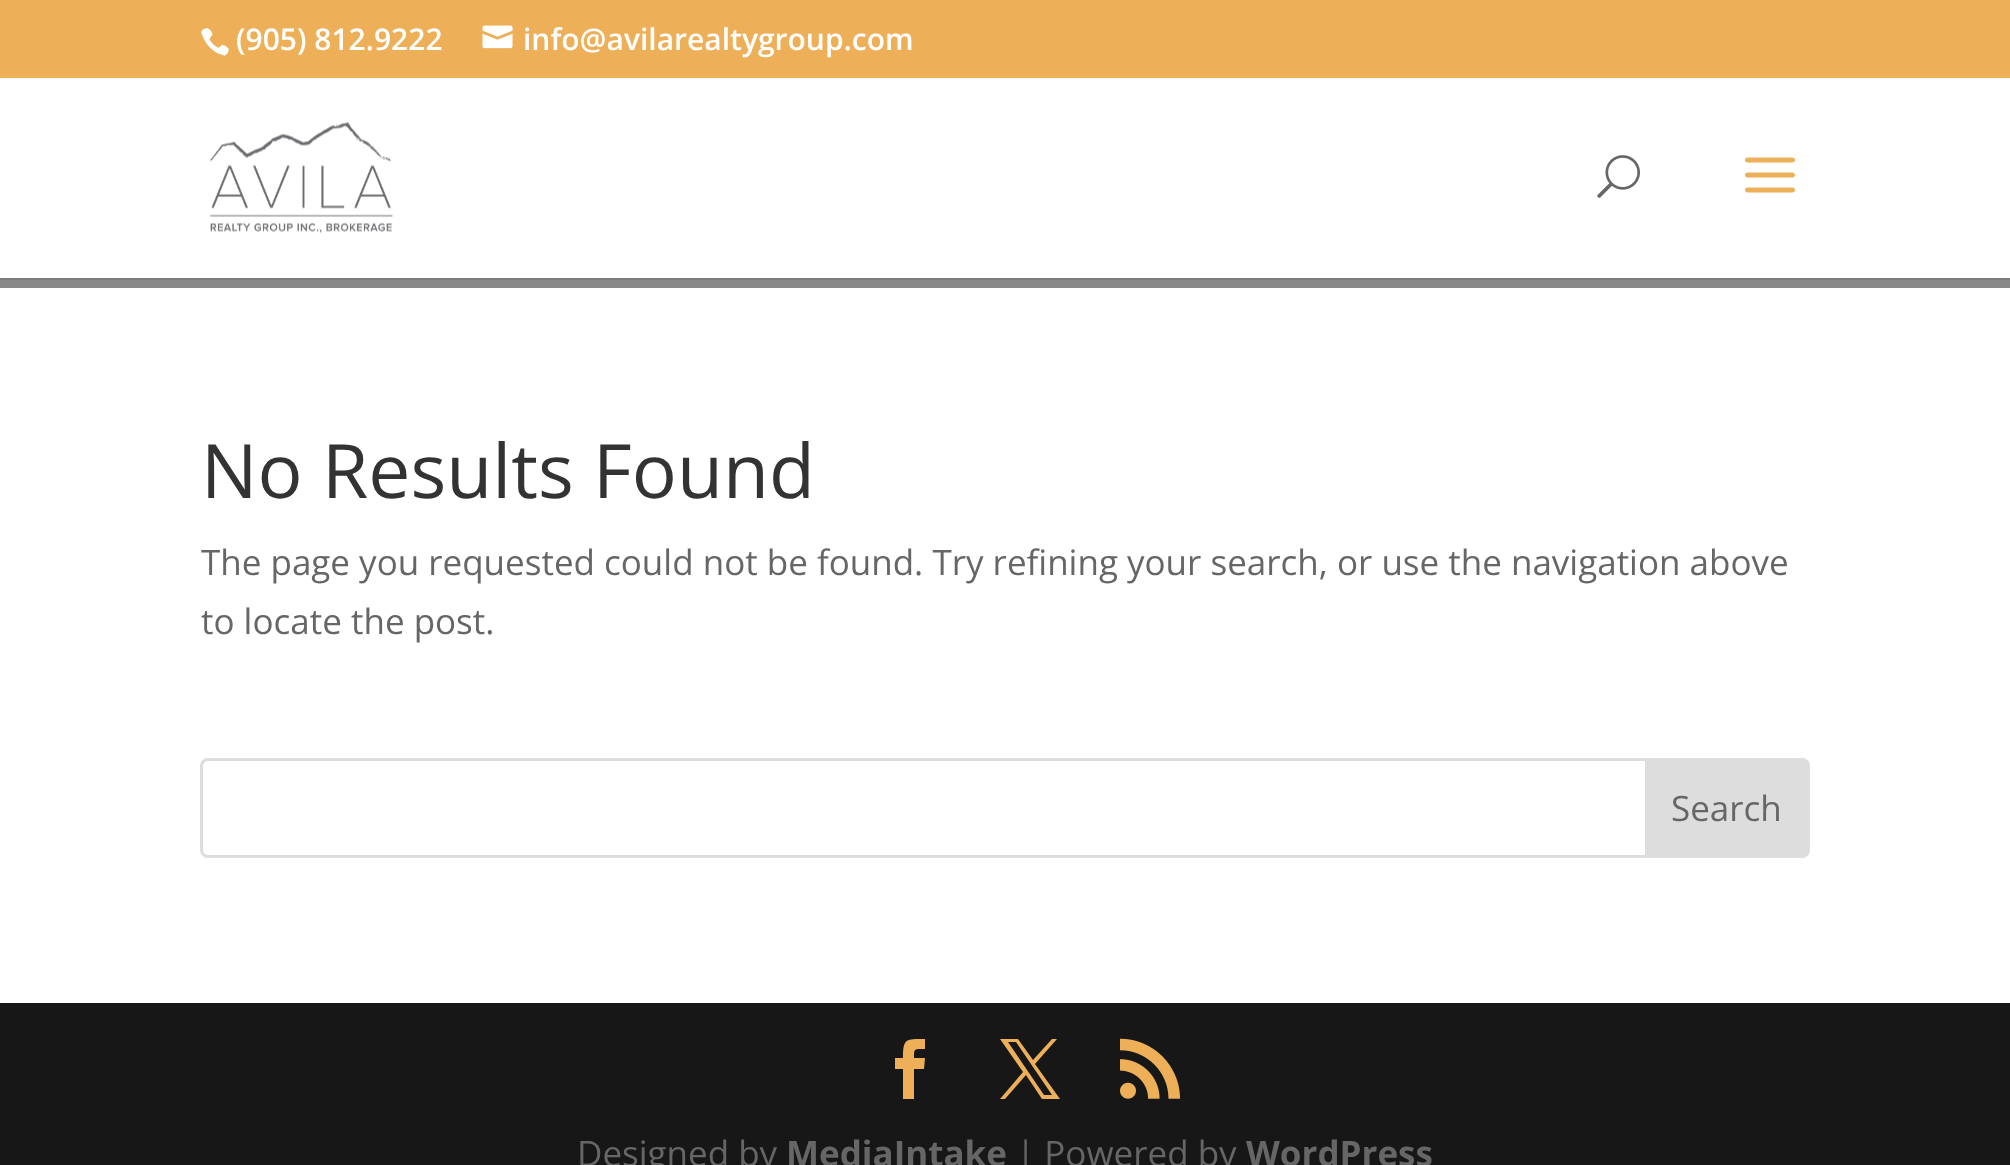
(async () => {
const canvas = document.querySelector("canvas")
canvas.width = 2010
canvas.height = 1165
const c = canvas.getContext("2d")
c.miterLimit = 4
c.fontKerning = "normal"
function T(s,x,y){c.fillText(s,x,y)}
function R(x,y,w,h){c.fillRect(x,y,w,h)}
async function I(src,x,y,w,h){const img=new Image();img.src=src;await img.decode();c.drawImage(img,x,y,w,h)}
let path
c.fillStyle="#898989"
R(0,0,2010,1165)
c.fillStyle="#edb059"
R(0,0,2010,78)
await I("1.png",201,28,28,28)
c.font="600 30px Open Sans"
c.fillStyle="#fff"
T("(905) 812.9222",236,50)
await I("2.png",482,25,31,24)
T("info@avilarealtygroup.com",523,50)
c.fillStyle="#7b7b7b"
R(0,278,2010,2)
c.fillStyle="#fff"
R(0,78,2010,200)
await I("3.png",210,122,183,111)
await I("4.png",1597,155,43,43)
await I("5.png",1745,157,50,36)
R(0,288,2010,715)
c.font="75px Open Sans"
c.fillStyle="#333"
T("No Results Found",201,498)
c.font="35px Open Sans"
c.fillStyle="#666"
T("The page you requested could not be found. Try refining your search, or use the navigation above",201,575)
T("to locate the post.",201,634)
c.beginPath()
c.roundRect(201.5,759.5,1607,97,6.5)
c.strokeStyle="#ddd"
c.lineWidth=3
c.stroke()
c.fillStyle="#ddd"
c.beginPath()
c.roundRect(1646.5,759.5,162,97,[0,6.5,6.5,0])
c.fill()
c.stroke()
c.fillStyle="#666"
T("Search",1671,821)
c.fillStyle="#171717"
R(0,1003,2010,162)
c.fillStyle="#edb059"
path = new Path2D("M903 1099h11v-30h10l1-11h-11c0-10 0-9 11-9v-10c-19 0-22-1-22 19h-8v11h8z")
c.fill(path)
path = new Path2D("M1000 1039l23 33l-23 27h5l21-24l16 24h18l-25-35l22-25h-5l-19 21l-15-21zm8 3h8l36 53h-8z")
c.fill(path)
await I("6.png",1120,1038,60,61)
c.fillStyle="#666"
T("Designed by",577,1166)
c.font="bold 35px Open Sans"
T("MediaIntake",786,1166)
c.font="35px Open Sans"
T("| Powered by",1016,1166)
c.font="bold 35px Open Sans"
T("WordPress",1246,1166)
})()
